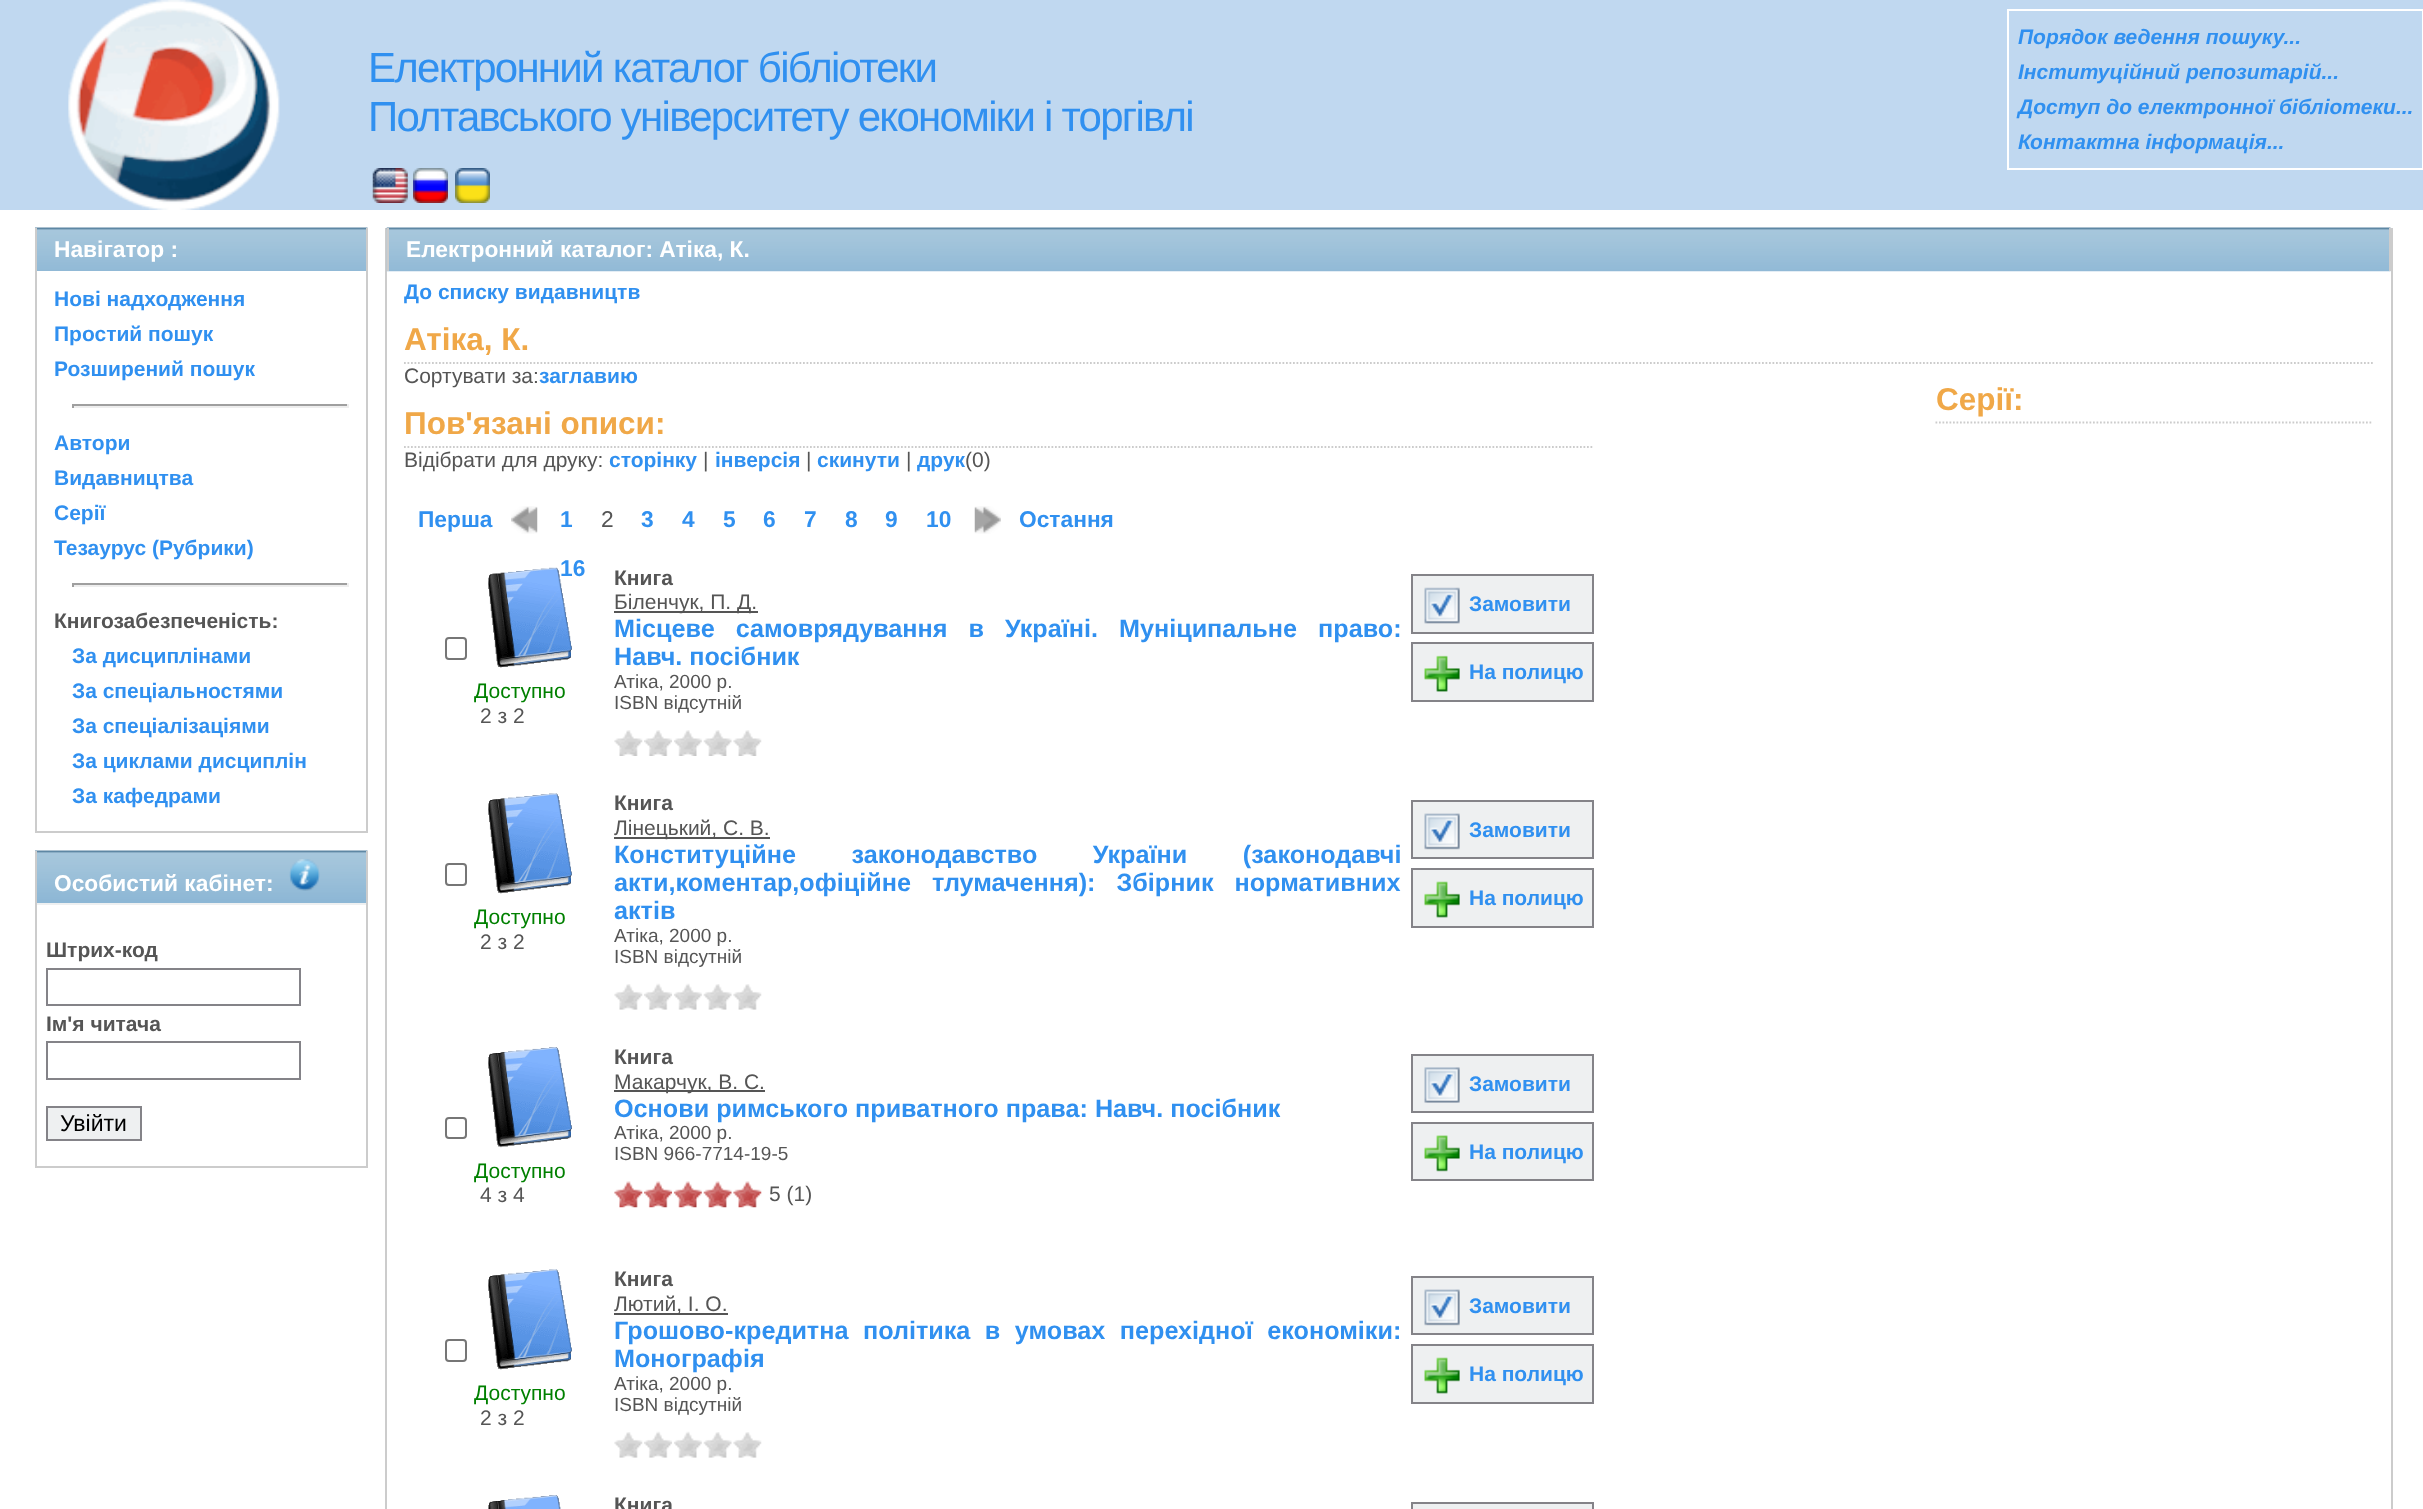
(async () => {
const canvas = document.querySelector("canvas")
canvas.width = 2423
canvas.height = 1509
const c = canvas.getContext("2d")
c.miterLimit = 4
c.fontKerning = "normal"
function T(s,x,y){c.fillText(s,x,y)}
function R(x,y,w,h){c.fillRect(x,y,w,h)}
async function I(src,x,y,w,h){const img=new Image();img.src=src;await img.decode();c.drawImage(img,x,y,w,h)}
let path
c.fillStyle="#fff"
R(0,0,2423,1509)
c.fillStyle="#c0d8f0"
R(0,0,2423,210)
await I("1.png",68,0,212,210)
c.letterSpacing="-1.75px"
c.font="42px Liberation Sans"
c.fillStyle="#3090f0"
T("Електронний каталог бібліотеки",368,82)
T("Полтавського університету економіки і торгівлі",368,131)
await I("2.png",372,168,36,35)
await I("3.png",413,168,35,35)
await I("4.png",455,168,35,35)
c.strokeStyle="#fff"
c.lineWidth=2
c.strokeRect(2008,10,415,159)
c.letterSpacing="0px"
c.font="italic bold 21px Liberation Sans"
T("Порядок ведення пошуку...",2018,44)
T("Інституційний репозитарій...",2018,79)
T("Доступ до електронної бібліотеки...",2018,114)
T("Контактна інформація...",2018,149)
await I("5.png",35,227,333,44)
c.fillStyle="#ccc"
R(366,228,2,605)
R(35,228,2,43)
c.font="bold 22.75px Liberation Sans"
c.fillStyle="#fff"
T("Навігатор :",54,257)
c.fillStyle="#ccc"
R(35,831,333,2)
R(35,271,2,562)
c.font="bold 21px Liberation Sans"
c.fillStyle="#3090f0"
T("Нові надходження",54,306)
T("Простий пошук",54,341)
T("Розширений пошук",54,376)
c.fillStyle="#9f9f9f"
R(72,404,276,2)
c.fillStyle="#eee"
R(347,404,2,4)
R(72,406,276,2)
c.fillStyle="#9f9f9f"
R(72,404,2,4)
c.fillStyle="#3090f0"
T("Автори",54,450)
T("Видавництва",54,485)
T("Серії",54,520)
T("Тезаурус (Рубрики)",54,555)
c.fillStyle="#9f9f9f"
R(72,583,276,2)
c.fillStyle="#eee"
R(347,583,2,4)
R(72,585,276,2)
c.fillStyle="#9f9f9f"
R(72,583,2,4)
c.fillStyle="#555"
T("Книгозабезпеченість:",54,628)
c.fillStyle="#3090f0"
T("За дисциплінами",72,663)
T("За спеціальностями",72,698)
T("За спеціалізаціями",72,733)
T("За циклами дисциплін",72,768)
T("За кафедрами",72,803)
c.fillStyle="#eef0f1"
R(37,903,329,2)
await I("6.png",35,850,333,53)
c.fillStyle="#ccc"
R(366,851,2,316)
R(35,851,2,54)
c.font="bold 22.75px Liberation Sans"
c.fillStyle="#fff"
T("Особистий кабінет:",54,891)
await I("7.png",289,859,31,32)
c.fillStyle="#ccc"
R(35,1166,333,2)
R(35,905,2,262)
c.font="bold 21px Liberation Sans"
c.fillStyle="#555"
T("Штрих-код",46,957)
c.strokeStyle="#848388"
c.strokeRect(47,969,253,36)
T("Ім'я читача",46,1031)
c.strokeRect(47,1042,253,37)
c.fillStyle="#eef0f1"
c.beginPath()
c.rect(47,1107,94,33)
c.fill()
c.stroke()
c.font="23px Liberation Sans"
c.fillStyle="#000"
T("Увійти",60,1131)
c.fillStyle="#ccc"
R(2391,228,2,1281)
R(385,228,2,1281)
await I("8.png",386,227,2005,45)
R(2389,228,2,43)
R(387,228,2,43)
c.font="bold 22.75px Liberation Sans"
c.fillStyle="#fff"
T("Електронний каталог: Атіка, К.",406,257)
c.font="bold 21px Liberation Sans"
c.fillStyle="#3090f0"
T("До списку видавництв",404,299)
path = new Path2D("M404 363h1969")
c.strokeStyle="#ccc"
c.lineWidth=1.8
c.setLineDash([1.75,1.75])
c.stroke(path)
c.font="bold 31.5px Liberation Sans"
c.fillStyle="#f0a848"
T("Атіка, К.",404,350)
c.font="21px Liberation Sans"
c.fillStyle="#555"
T("Сортувати за:",404,383)
c.font="bold 21px Liberation Sans"
c.fillStyle="#3090f0"
T("заглавию",539,383)
path = new Path2D("M404 447h1190")
c.stroke(path)
c.font="bold 31.5px Liberation Sans"
c.fillStyle="#f0a848"
T("Пов'язані описи:",404,434)
c.font="21px Liberation Sans"
c.fillStyle="#555"
T("Відібрати для друку:",404,467)
c.font="bold 21px Liberation Sans"
c.fillStyle="#3090f0"
T("сторінку",609,467)
c.font="21px Liberation Sans"
c.fillStyle="#555"
T("|",703,467)
c.font="bold 21px Liberation Sans"
c.fillStyle="#3090f0"
T("інверсія",715,467)
c.font="21px Liberation Sans"
c.fillStyle="#555"
T("|",806,467)
c.font="bold 21px Liberation Sans"
c.fillStyle="#3090f0"
T("скинути",817,467)
c.font="21px Liberation Sans"
c.fillStyle="#555"
T("|",906,467)
c.font="bold 21px Liberation Sans"
c.fillStyle="#3090f0"
T("друк",917,467)
c.font="21px Liberation Sans"
c.fillStyle="#555"
T("(0)",965,467)
c.font="bold 22.75px Liberation Sans"
c.fillStyle="#3090f0"
T("Перша",418,527)
await I("9.png",511,506,27,28)
T("1",560,527)
c.font="22.75px Liberation Sans"
c.fillStyle="#555"
T("2",601,527)
c.font="bold 22.75px Liberation Sans"
c.fillStyle="#3090f0"
T("3",641,527)
T("4",682,527)
T("5",723,527)
T("6",763,527)
T("7",804,527)
T("8",845,527)
T("9",885,527)
T("10",926,527)
T("16",560,576)
await I("10.png",974,506,27,28)
T("Остання",1019,527)
c.font="bold 21px Liberation Sans"
c.fillStyle="#555"
T("Книга",614,585)
R(614,611,144,2)
c.font="21px Liberation Sans"
T("Біленчук, П. Д.",614,609)
c.wordSpacing="14px"
c.font="bold 25.2px Liberation Sans"
c.fillStyle="#3090f0"
T("Місцеве самоврядування в Україні. Муніципальне право:",614,637)
c.wordSpacing="0px"
T("Навч. посібник",614,665)
c.font="19px Liberation Sans"
c.fillStyle="#555"
T("Атіка, 2000 р.",614,688)
T("ISBN відсутній",614,709)
await I("11.png",614,730,29,26)
await I("12.png",644,730,28,26)
await I("13.png",674,730,28,26)
await I("14.png",703,730,29,26)
await I("15.png",733,730,29,26)
c.fillStyle="#eef0f1"
c.beginPath()
c.rect(1412,575,181,58)
c.fill()
c.strokeStyle="#848388"
c.lineWidth=2
c.setLineDash([])
c.stroke()
await I("16.png",1424,587,36,37)
c.font="bold 21px Liberation Sans"
c.fillStyle="#3090f0"
T("Замовити",1469,611)
c.fillStyle="#eef0f1"
c.beginPath()
c.rect(1412,643,181,58)
c.fill()
c.stroke()
await I("17.png",1424,655,36,37)
c.fillStyle="#3090f0"
T("На полицю",1469,679)
c.beginPath()
c.roundRect(446,638,20,21,3)
c.strokeStyle="#767676"
c.stroke()
await I("18.png",488,567,84,101)
c.font="21px Liberation Sans"
c.fillStyle="#008000"
T("Доступно",474,698)
c.fillStyle="#555"
T("2 з 2",480,723)
c.font="bold 21px Liberation Sans"
T("Книга",614,810)
R(614,837,156,2)
c.font="21px Liberation Sans"
T("Лінецький, С. В.",614,835)
c.wordSpacing="48.5px"
c.font="bold 25.2px Liberation Sans"
c.fillStyle="#3090f0"
T("Конституційне законодавство України (законодавчі",614,863)
c.wordSpacing="14px"
T("акти,коментар,офіційне тлумачення): Збірник нормативних",614,891)
c.wordSpacing="0px"
T("актів",614,919)
c.font="19px Liberation Sans"
c.fillStyle="#555"
T("Атіка, 2000 р.",614,942)
T("ISBN відсутній",614,963)
await I("19.png",614,984,29,26)
await I("20.png",644,983,28,27)
await I("21.png",674,983,28,27)
await I("22.png",703,984,29,26)
await I("23.png",733,984,29,26)
c.fillStyle="#eef0f1"
c.beginPath()
c.rect(1412,801,181,57)
c.fill()
c.strokeStyle="#848388"
c.stroke()
await I("24.png",1424,813,36,37)
c.font="bold 21px Liberation Sans"
c.fillStyle="#3090f0"
T("Замовити",1469,837)
c.fillStyle="#eef0f1"
c.beginPath()
c.rect(1412,869,181,58)
c.fill()
c.stroke()
await I("25.png",1424,881,36,37)
c.fillStyle="#3090f0"
T("На полицю",1469,905)
c.beginPath()
c.roundRect(446,864,20,21,3)
c.strokeStyle="#767676"
c.stroke()
await I("26.png",488,793,84,101)
c.font="21px Liberation Sans"
c.fillStyle="#008000"
T("Доступно",474,924)
c.fillStyle="#555"
T("2 з 2",480,949)
c.font="bold 21px Liberation Sans"
T("Книга",614,1064)
R(614,1090,151,2)
c.font="21px Liberation Sans"
T("Макарчук, В. С.",614,1089)
c.font="bold 25.2px Liberation Sans"
c.fillStyle="#3090f0"
T("Основи римського приватного права: Навч. посібник",614,1117)
c.font="19px Liberation Sans"
c.fillStyle="#555"
T("Атіка, 2000 р.",614,1139)
T("ISBN 966-7714-19-5",614,1160)
await I("27.png",614,1181,29,27)
await I("28.png",644,1181,28,27)
await I("29.png",673,1181,29,27)
await I("30.png",703,1181,29,27)
await I("31.png",733,1181,29,27)
c.font="21px Liberation Sans"
T("5 (1)",769,1201)
c.fillStyle="#eef0f1"
c.beginPath()
c.rect(1412,1055,181,57)
c.fill()
c.strokeStyle="#848388"
c.stroke()
await I("32.png",1424,1067,36,36)
c.font="bold 21px Liberation Sans"
c.fillStyle="#3090f0"
T("Замовити",1469,1091)
c.fillStyle="#eef0f1"
c.beginPath()
c.rect(1412,1123,181,57)
c.fill()
c.stroke()
await I("33.png",1424,1135,36,37)
c.fillStyle="#3090f0"
T("На полицю",1469,1159)
c.beginPath()
c.roundRect(446,1118,20,20,3)
c.strokeStyle="#767676"
c.stroke()
await I("34.png",488,1047,84,101)
c.font="21px Liberation Sans"
c.fillStyle="#008000"
T("Доступно",474,1178)
c.fillStyle="#555"
T("4 з 4",480,1202)
c.font="bold 21px Liberation Sans"
T("Книга",614,1286)
R(614,1313,114,2)
c.font="21px Liberation Sans"
T("Лютий, І. О.",614,1311)
c.wordSpacing="7.5px"
c.font="bold 25.2px Liberation Sans"
c.fillStyle="#3090f0"
T("Грошово-кредитна політика в умовах перехідної економіки:",614,1339)
c.wordSpacing="0px"
T("Монографія",614,1367)
c.font="19px Liberation Sans"
c.fillStyle="#555"
T("Атіка, 2000 р.",614,1390)
T("ISBN відсутній",614,1411)
await I("19.png",614,1432,29,26)
await I("20.png",644,1431,28,27)
await I("21.png",674,1431,28,27)
await I("22.png",703,1432,29,26)
await I("23.png",733,1432,29,26)
c.fillStyle="#eef0f1"
c.beginPath()
c.rect(1412,1277,181,57)
c.fill()
c.strokeStyle="#848388"
c.stroke()
await I("24.png",1424,1289,36,37)
c.font="bold 21px Liberation Sans"
c.fillStyle="#3090f0"
T("Замовити",1469,1313)
c.fillStyle="#eef0f1"
c.beginPath()
c.rect(1412,1345,181,58)
c.fill()
c.stroke()
await I("25.png",1424,1357,36,37)
c.fillStyle="#3090f0"
T("На полицю",1469,1381)
c.beginPath()
c.roundRect(446,1340,20,21,3)
c.strokeStyle="#767676"
c.stroke()
await I("26.png",488,1269,84,101)
c.font="21px Liberation Sans"
c.fillStyle="#008000"
T("Доступно",474,1400)
c.fillStyle="#555"
T("2 з 2",480,1425)
await I("35.png",488,1495,73,14)
c.font="bold 21px Liberation Sans"
T("Книга",614,1512)
c.fillStyle="#eef0f1"
c.beginPath()
c.rect(1412,1503,181,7)
c.fill()
c.strokeStyle="#848388"
c.stroke()
path = new Path2D("M1935.5 422.5h437.5")
c.strokeStyle="#ccc"
c.lineWidth=1.8
c.setLineDash([1.75,1.75])
c.stroke(path)
c.font="bold 31.5px Liberation Sans"
c.fillStyle="#f0a848"
T("Серії:",1936,410)
})()
